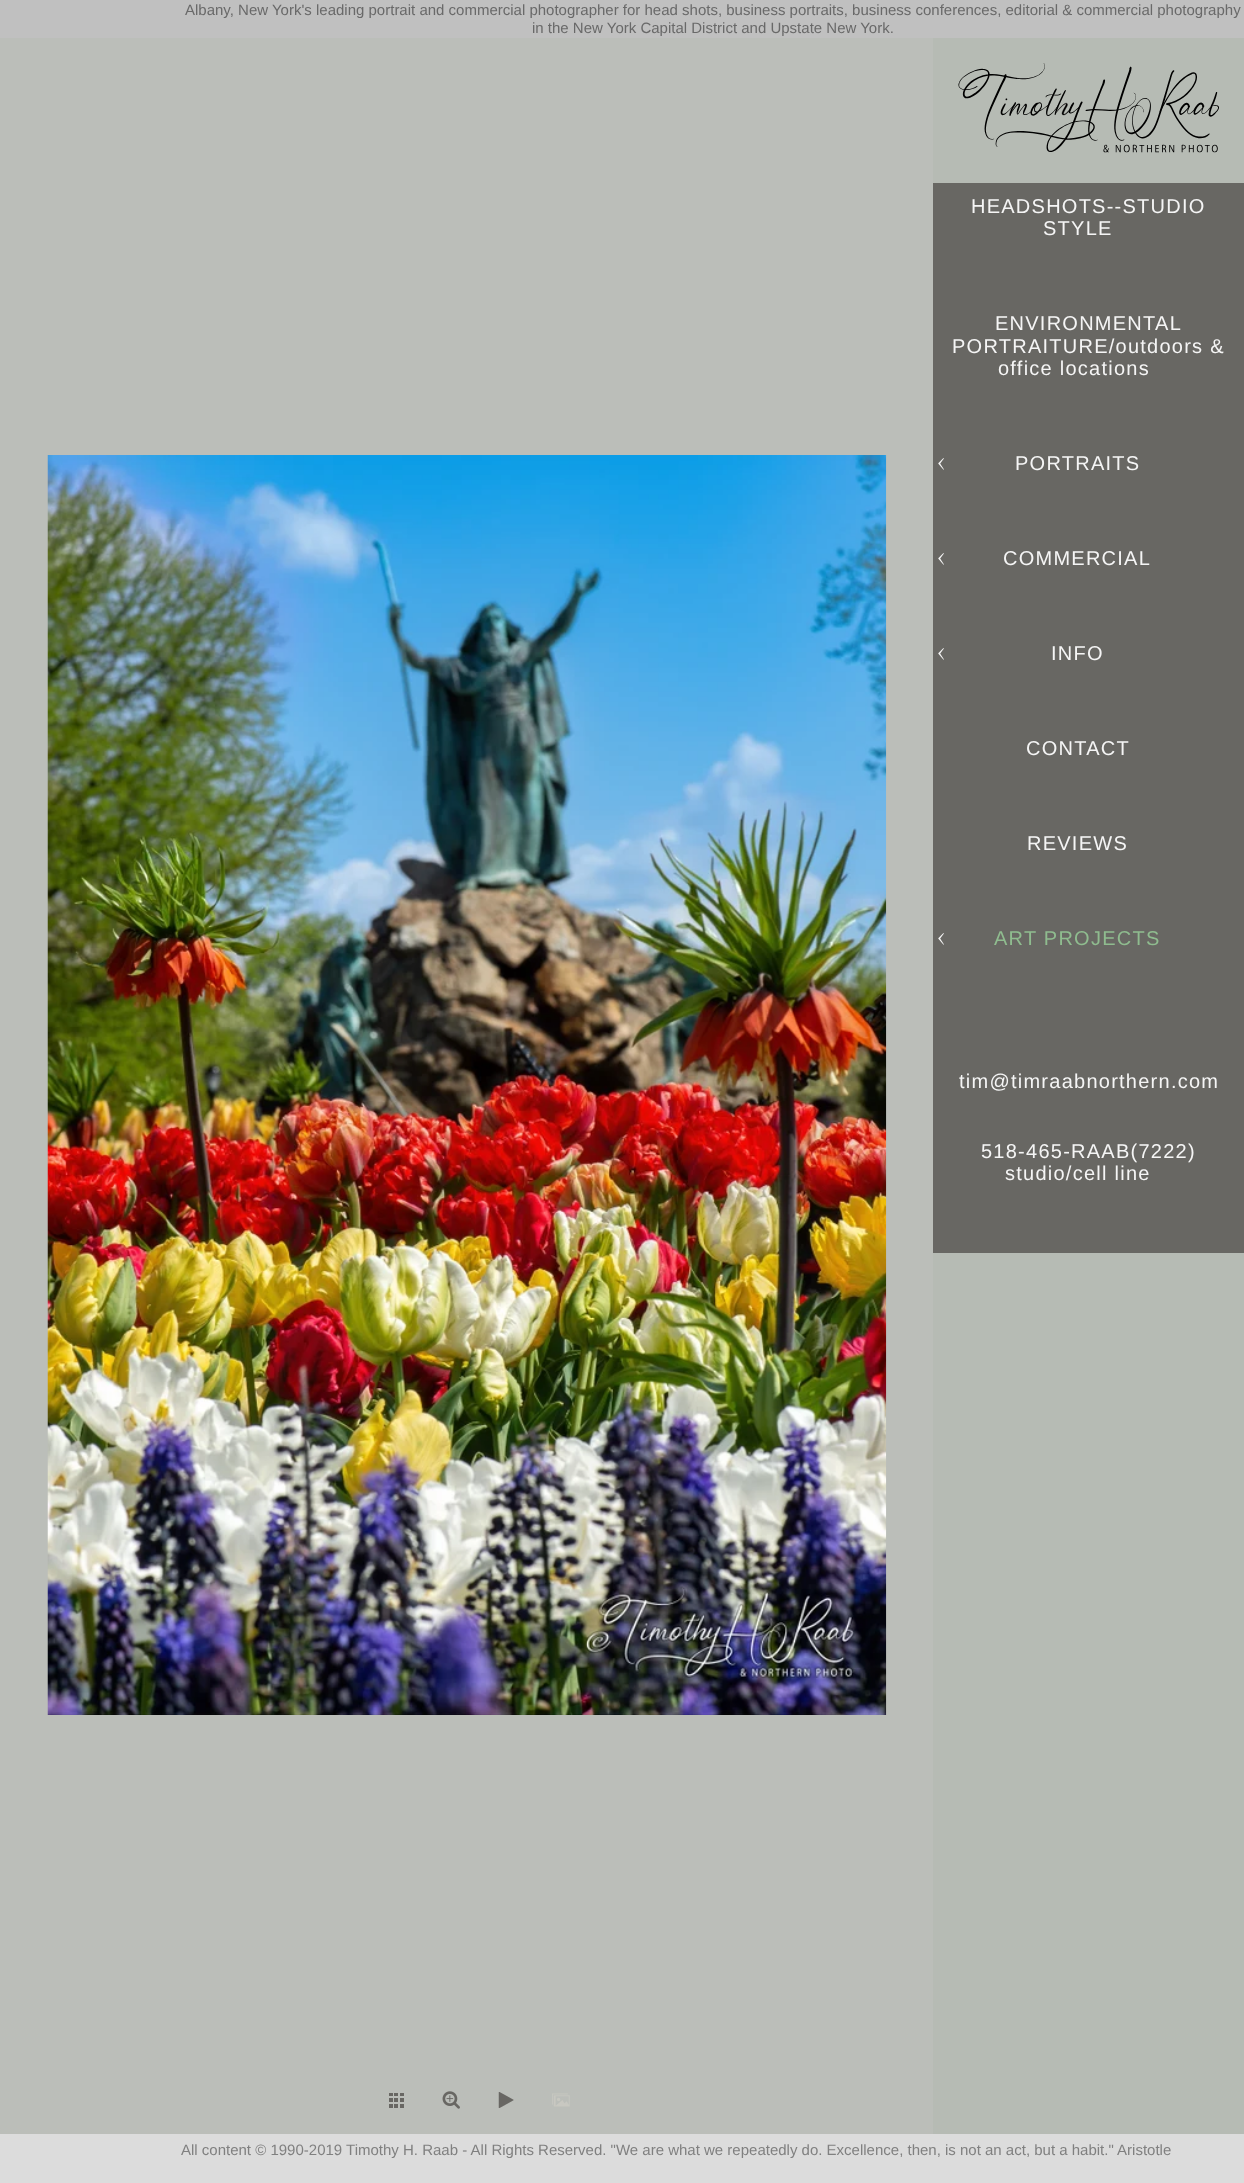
(async () => {
const canvas = document.querySelector("canvas")
canvas.width = 1244
canvas.height = 2183
const c = canvas.getContext("2d")
c.miterLimit = 4
c.fontKerning = "normal"
function T(s,x,y){c.fillText(s,x,y)}
function R(x,y,w,h){c.fillRect(x,y,w,h)}
async function I(src,x,y,w,h){const img=new Image();img.src=src;await img.decode();c.drawImage(img,x,y,w,h)}
c.fillStyle="#bbbeb9"
R(0,0,1244,2183)
c.fillStyle="#c0c0c0"
R(0,0,1244,38)
c.font="15px Liberation Sans"
c.fillStyle="#696969"
T("Albany, New York's leading portrait and commercial photographer for head shots, business portraits, business conferences, editorial & commercial photography",185,15)
T("in the New York Capital District and Upstate New York.",532,33)
await I("1.png",47,455,840,1260)
c.fillStyle="#b6bbb4"
R(933,38,311,2096)
await I("2.png",958,63,261,90)
c.fillStyle="#686763"
R(933,183,311,1070)
c.letterSpacing="1.25px"
c.font="20px Liberation Sans"
c.fillStyle="#f5f5f5"
T("HEADSHOTS--STUDIO",971,213)
T("STYLE",1043,235)
T("ENVIRONMENTAL",995,330)
T("PORTRAITURE/outdoors &",952,353)
T("office locations",998,375)
await I("3.png",938,458,6,12)
T("PORTRAITS",1015,470)
await I("3.png",938,553,6,12)
T("COMMERCIAL",1003,565)
await I("3.png",938,648,6,12)
T("INFO",1051,660)
T("CONTACT",1026,755)
T("REVIEWS",1027,850)
await I("3.png",938,933,6,12)
c.fillStyle="#8fbc8f"
T("ART PROJECTS",994,945)
c.fillStyle="#f5f5f5"
T("tim@timraabnorthern.com",959,1088)
T("518-465-RAAB(7222)",981,1158)
T("studio/cell line",1005,1180)
await I("4.png",389,2093,15,15)
await I("5.png",442,2091,18,18)
await I("6.png",498,2092,16,16)
await I("7.png",552,2093,18,14)
c.fillStyle="#dcdcdc"
R(0,2134,1244,49)
c.letterSpacing="0px"
c.font="15px Liberation Sans"
c.fillStyle="#808080"
T("All content © 1990-2019 Timothy H. Raab - All Rights Reserved. \"We are what we repeatedly do. Excellence, then, is not an act, but a habit.\" Aristotle",181,2155)
})()
